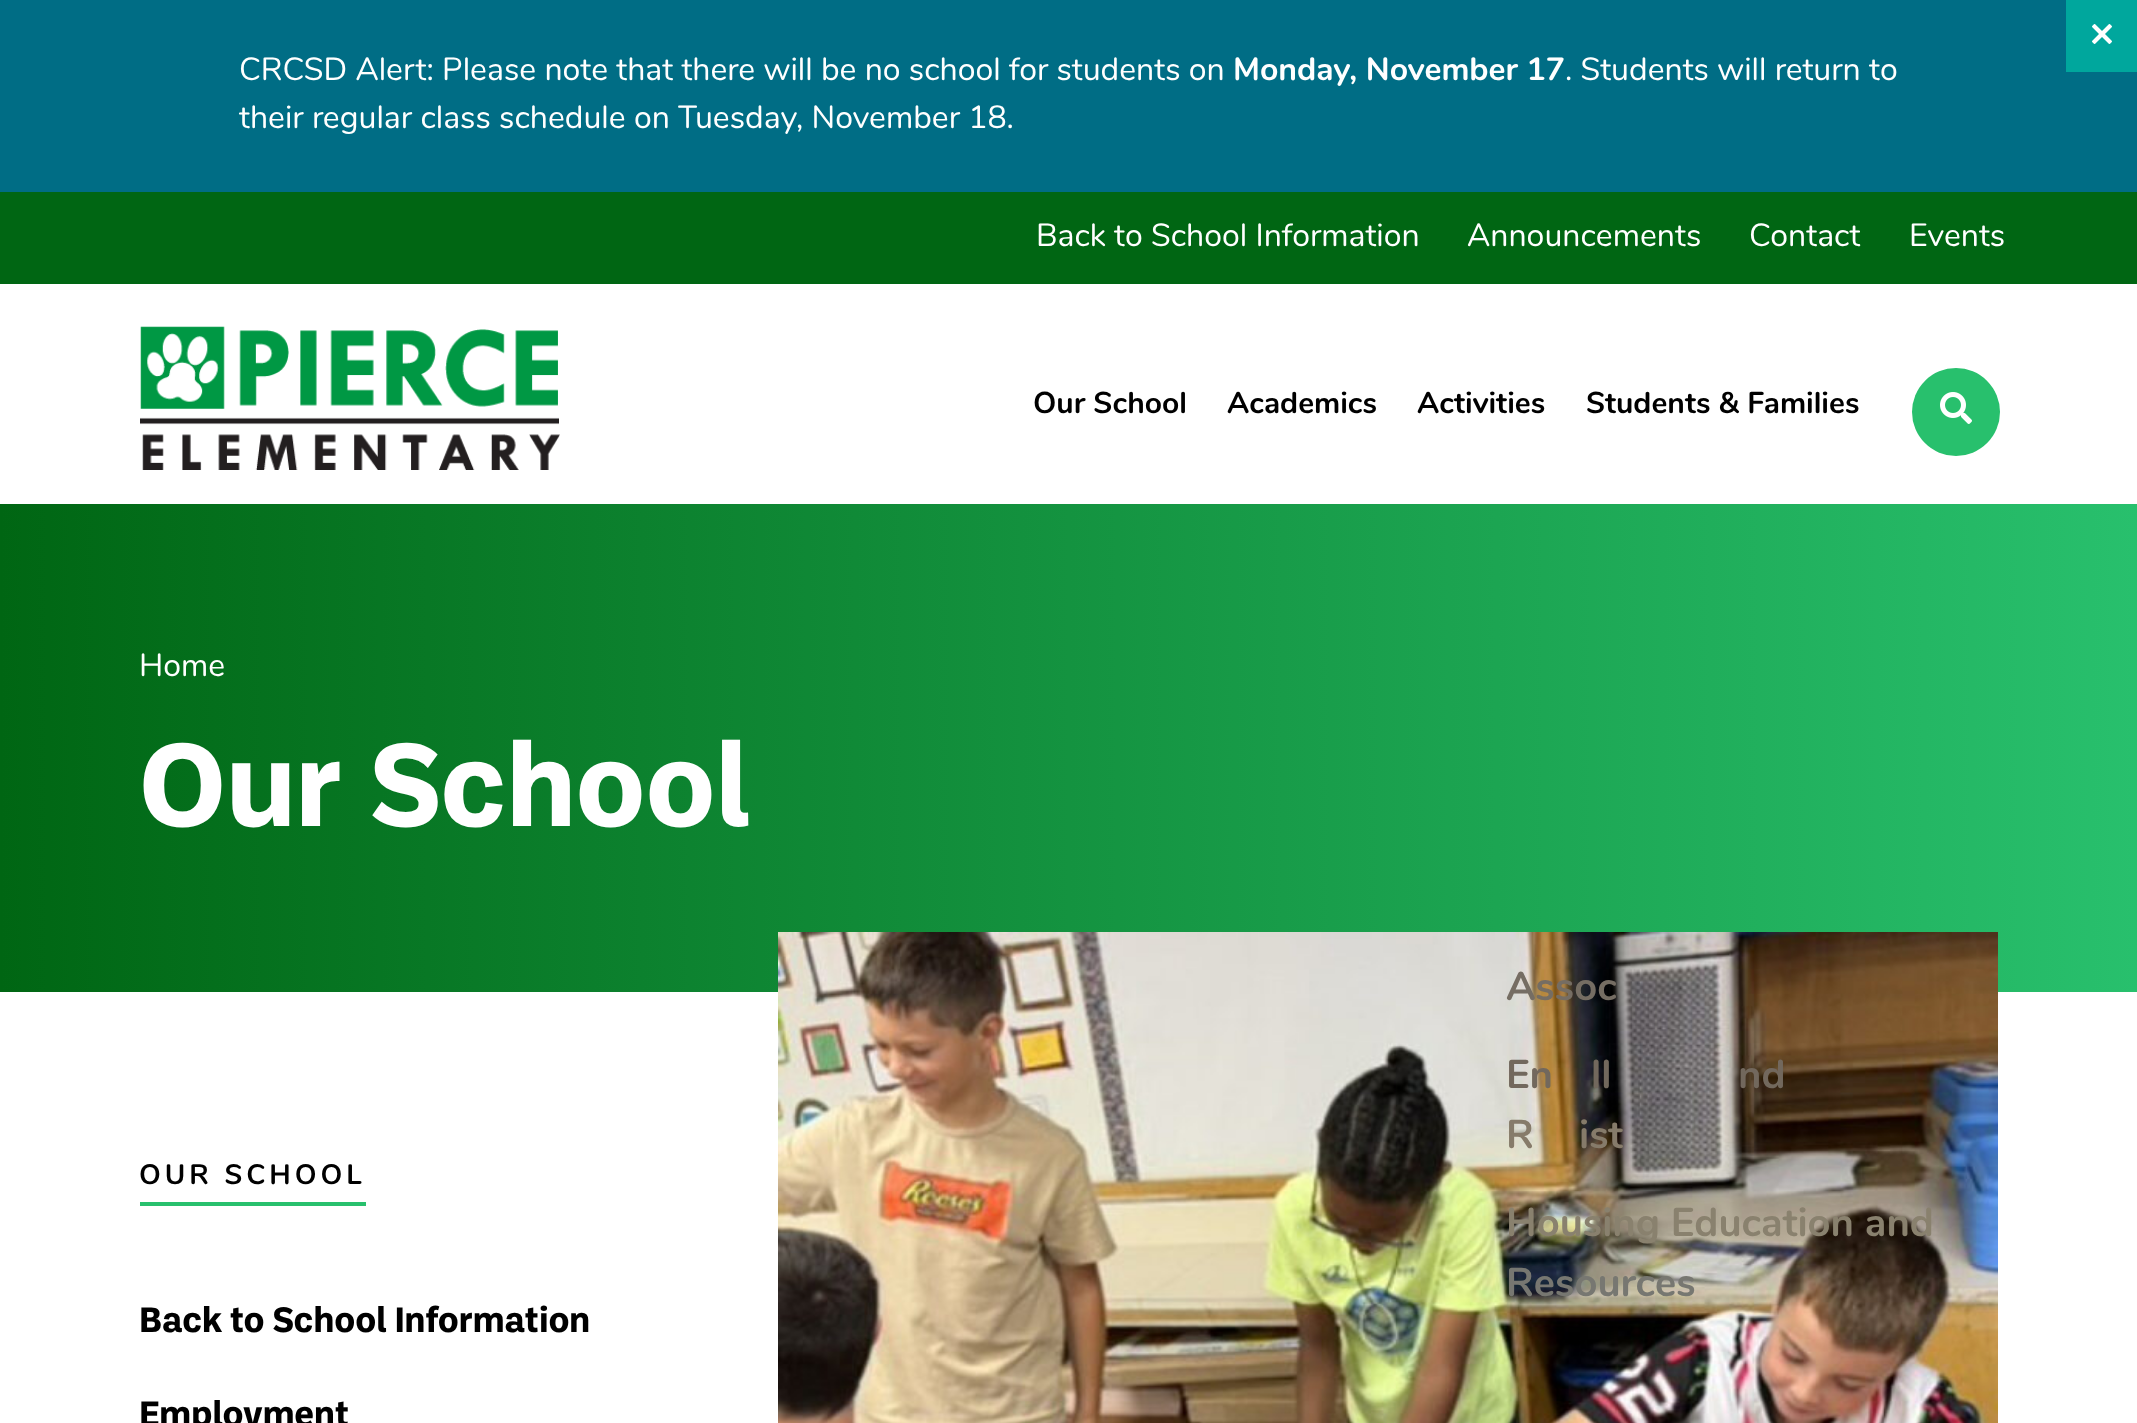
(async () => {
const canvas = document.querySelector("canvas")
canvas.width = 2137
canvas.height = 1423
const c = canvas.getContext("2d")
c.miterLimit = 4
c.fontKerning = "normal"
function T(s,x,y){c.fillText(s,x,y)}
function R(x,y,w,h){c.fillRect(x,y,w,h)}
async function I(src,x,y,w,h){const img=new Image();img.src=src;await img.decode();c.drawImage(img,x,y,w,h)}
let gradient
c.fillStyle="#fff"
R(0,0,2137,1423)
c.fillStyle="#006d85"
R(0,0,2137,192)
c.fillStyle="#00a79d"
R(2066,0,71,72)
await I("1.png",2092,24,20,20)
c.font="32px Nunito"
c.fillStyle="#fff"
T("CRCSD Alert: Please note that there will be no school for students on",239,80)
c.font="bold 32px Nunito"
T("Monday, November 17",1233,80)
c.font="32px Nunito"
T(". Students will return to",1565,80)
T("their regular class schedule on Tuesday, November 18.",239,128)
gradient = c.createLinearGradient(0,748,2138,748)
gradient.addColorStop(0,"#006613")
gradient.addColorStop(1,"#28c06d")
c.fillStyle = gradient
R(0,504,2137,488)
c.fillStyle="#fff"
T("Home",139,676)
c.font="bold 120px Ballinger"
T("Our School",139,826)
c.fillStyle="#28c06d"
R(140,1202,226,4)
c.letterSpacing="4px"
c.font="bold 28px Nunito"
c.fillStyle="#000"
T("OUR SCHOOL",139,1184)
c.letterSpacing="0px"
c.font="bold 36px Ballinger"
T("Back to School Information",139,1332)
T("Employment",139,1426)
await I("2.png",778,932,1220,491)
c.fillStyle="#006613"
R(0,192,2137,92)
c.font="32px Nunito"
c.fillStyle="#fff"
T("Back to School Information",1036,246)
T("Announcements",1467,246)
T("Contact",1749,246)
T("Events",1909,246)
await I("3.png",140,326,420,144)
c.font="bold 30px Nunito"
c.fillStyle="#000"
T("Our School",1033,413)
T("Academics",1227,413)
T("Activities",1417,413)
T("Students & Families",1586,413)
c.font="bold 40px Nunito"
c.fillStyle="#756d63"
T("Assoc",1506,1000)
c.fillStyle="#72685d"
T("En",1506,1088)
T("ll",1591,1088)
T("nd",1738,1088)
c.fillStyle="#867b6a"
T("R",1506,1148)
T("ist",1579,1148)
c.fillStyle="#89816e"
T("Housing Education and",1506,1236)
c.fillStyle="#777771"
T("Resources",1506,1296)
c.fillStyle="#28c06d"
c.beginPath()
c.arc(1956,412,44,0,7)
c.fill()
await I("4.png",1940,392,32,32)
})()
